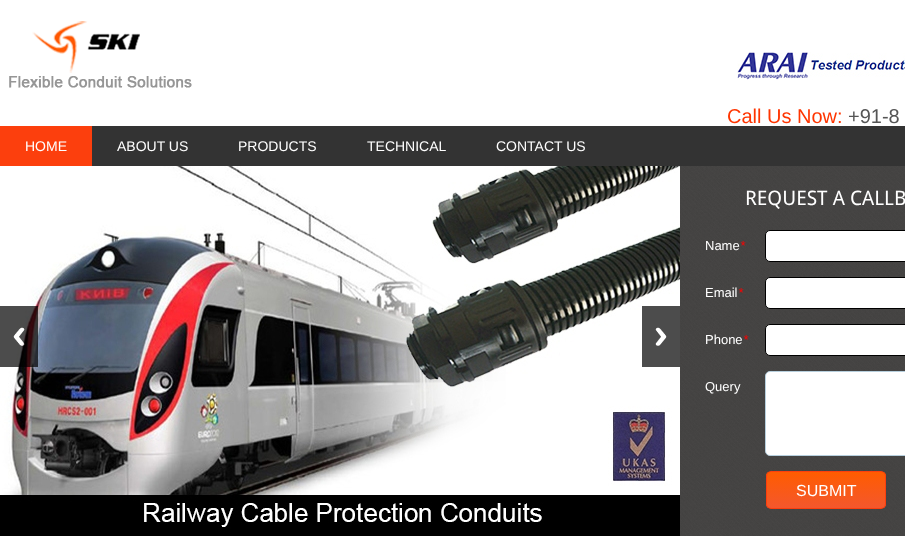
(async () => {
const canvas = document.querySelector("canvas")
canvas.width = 905
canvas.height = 538
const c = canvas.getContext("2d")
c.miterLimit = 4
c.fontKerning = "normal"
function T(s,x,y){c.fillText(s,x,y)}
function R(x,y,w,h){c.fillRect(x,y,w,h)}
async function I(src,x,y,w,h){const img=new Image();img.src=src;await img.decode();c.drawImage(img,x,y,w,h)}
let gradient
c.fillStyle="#fff"
R(0,0,905,538)
await I("1.png",9,21,183,67)
await I("2.png",737,52,168,28)
c.font="20px Liberation Sans"
c.fillStyle="#ff3500"
T("Call Us Now:",727,123)
c.fillStyle="#555"
T("+91-8",848,123)
c.fillStyle="#333"
R(92,126,813,40)
c.fillStyle="#fc3f0d"
R(0,126,92,40)
c.font="14px Liberation Sans"
c.fillStyle="#fff"
T("HOME",25,151)
T("ABOUT US",117,151)
T("PRODUCTS",238,151)
T("TECHNICAL",367,151)
T("CONTACT US",496,151)
await I("3.png",680,166,225,370)
await I("4.png",0,166,680,370)
await I("5.png",0,306,38,61)
await I("6.png",642,306,38,61)
c.fillStyle="#000000b3"
R(680,166,225,370)
c.font="20px Droid Sans"
c.fillStyle="#fff"
T("REQUEST A CALLB",745,205)
c.font="13px Liberation Sans"
T("Name",705,250)
c.font="italic 13px Liberation Sans"
c.fillStyle="#f00"
T("*",740,250)
c.fillStyle="#fff"
c.beginPath()
c.roundRect(765.5,230.5,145,31,4.5)
c.fill()
c.strokeStyle="#000"
c.stroke()
c.font="13px Liberation Sans"
T("Email",705,297)
c.font="italic 13px Liberation Sans"
c.fillStyle="#f00"
T("*",738,297)
c.fillStyle="#fff"
c.beginPath()
c.roundRect(765.5,277.5,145,31,4.5)
c.fill()
c.stroke()
c.font="13px Liberation Sans"
T("Phone",705,344)
c.font="italic 13px Liberation Sans"
c.fillStyle="#f00"
T("*",743,344)
c.fillStyle="#fff"
c.beginPath()
c.roundRect(765.5,324.5,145,31,4.5)
c.fill()
c.stroke()
c.font="13px Liberation Sans"
T("Query",705,391)
c.beginPath()
c.roundRect(765.5,371.5,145,84,4.5)
c.fill()
c.strokeStyle="#b7cfdd"
c.stroke()
c.save()
c.beginPath()
c.roundRect(766,471,120,38,5)
c.clip()
gradient = c.createLinearGradient(826,472,826,508)
gradient.addColorStop(0,"#ff5c00")
gradient.addColorStop(1,"#f4572d")
c.fillStyle = gradient
R(766,472,120,36)
c.restore()
c.beginPath()
c.roundRect(766.5,471.5,119,37,4.5)
c.strokeStyle="#fc3f0d"
c.stroke()
c.font="16px Liberation Sans"
T("SUBMIT",796,496)
})()
